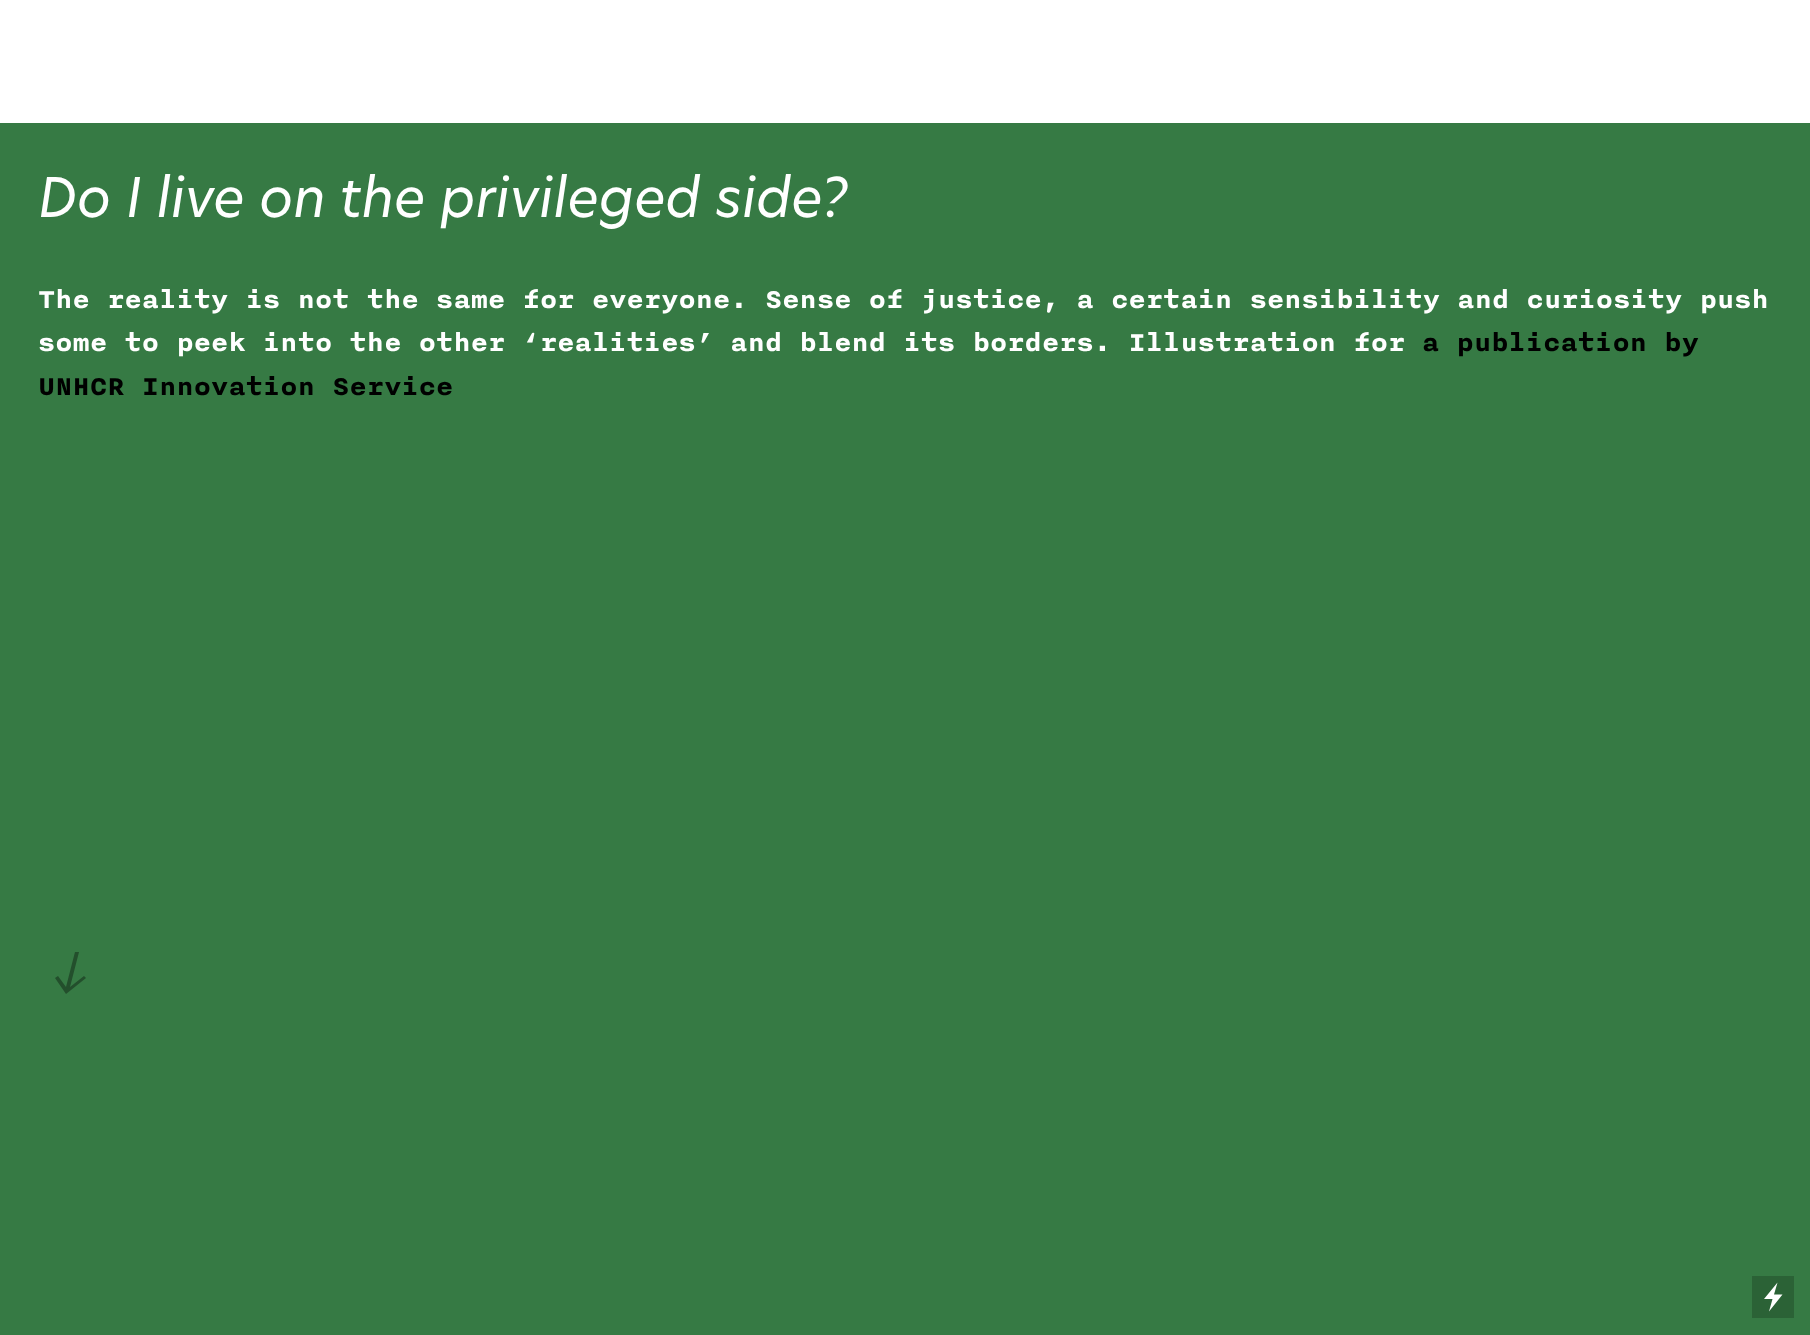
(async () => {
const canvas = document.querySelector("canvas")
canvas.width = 1810
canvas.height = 1335
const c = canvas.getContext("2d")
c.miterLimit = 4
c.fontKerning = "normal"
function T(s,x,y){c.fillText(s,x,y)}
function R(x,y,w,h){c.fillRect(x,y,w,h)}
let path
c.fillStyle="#fff"
R(0,0,1810,1335)
c.fillStyle="#367a44"
R(0,123,1810,1212)
c.font="italic 53.8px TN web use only"
c.fillStyle="#fff"
T("Do I live on the privileged side?",38,217)
c.font="bold 28.85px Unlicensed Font"
T("The reality is not the same for everyone. Sense of justice, a certain sensibility and curiosity push",38,308)
T("some to peek into the other ‘realities’ and blend its borders. Illustration for",38,351)
c.fillStyle="#000"
T("a publication by",1422,351)
T("UNHCR Innovation Service",38,395)
c.fillStyle="#234f2c"
path = new Path2D("M75 952l-9 35l-8-11l-3 2l11 16l20-16l-2-2l-14 11l9-35z")
c.fill(path)
c.fillStyle="#2b6236"
R(1752,1276,42,42)
c.fillStyle="#fff"
path = new Path2D("M1782.5 1294.5h-8.5l3.5-12l-13.5 16.5h8.5l-3.5 12.5z")
c.fill(path)
})()
